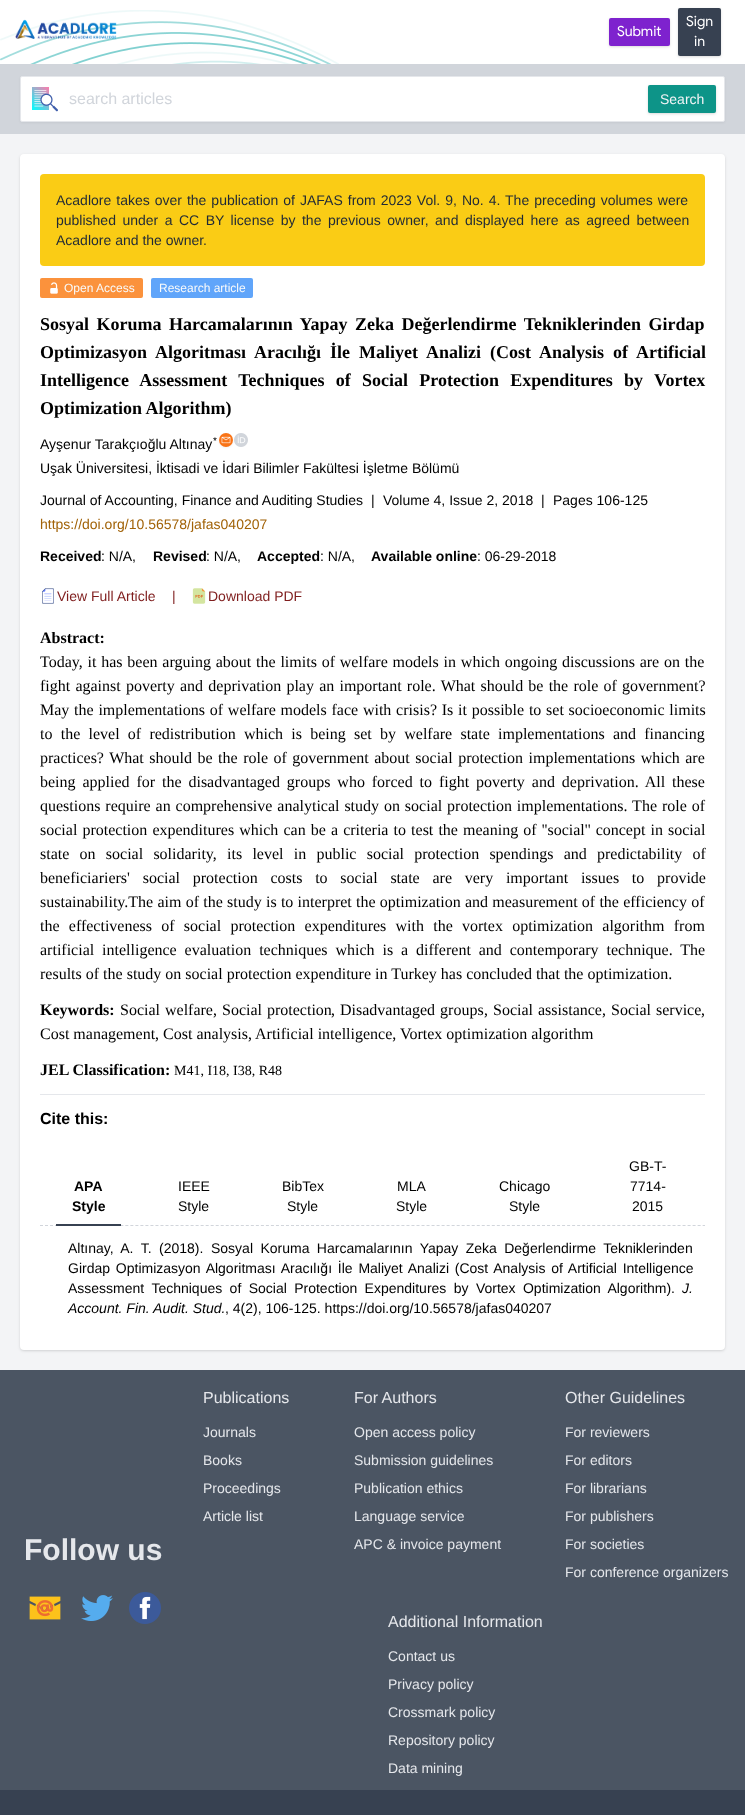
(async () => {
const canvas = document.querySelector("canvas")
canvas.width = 745
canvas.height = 1815
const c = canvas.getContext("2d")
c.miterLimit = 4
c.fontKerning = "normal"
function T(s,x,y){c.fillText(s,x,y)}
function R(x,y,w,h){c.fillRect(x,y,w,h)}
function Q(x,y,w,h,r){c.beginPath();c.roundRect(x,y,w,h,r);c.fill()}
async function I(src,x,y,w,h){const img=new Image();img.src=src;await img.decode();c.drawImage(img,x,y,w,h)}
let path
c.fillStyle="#fff"
R(0,0,745,1815)
await I("1.png",0,10,339,54)
await I("2.png",15,19,102,20)
c.fillStyle="#0000001a"
c.filter="blur(1px)"
c.beginPath()
c.roundRect(610,20,59,26,1)
c.fill()
c.filter="none"
c.filter="blur(1.5px)"
c.beginPath()
c.roundRect(609,19,61,28,2)
c.fill()
c.filter="none"
c.fillStyle="#7e22ce"
Q(609,18,61,28,2)
c.font="14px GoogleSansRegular"
c.fillStyle="#fff"
T("Submit",617,36)
c.fillStyle="#0000001a"
c.filter="blur(1px)"
c.beginPath()
c.roundRect(679,10,41,46,1)
c.fill()
c.filter="none"
c.filter="blur(1.5px)"
c.beginPath()
c.roundRect(678,9,43,48,2)
c.fill()
c.filter="none"
c.fillStyle="#374151"
Q(678,8,43,48,2)
c.fillStyle="#fff"
T("Sign",686,26)
T("in",694,46)
c.fillStyle="#d1d5db"
R(0,64,745,70)
c.fillStyle="#0000000d"
c.filter="blur(1px)"
c.beginPath()
c.roundRect(20,77,705,46,2)
c.fill()
c.filter="none"
c.fillStyle="#fff"
c.beginPath()
c.roundRect(20.5,76.5,704,45,1.5)
c.fill()
c.strokeStyle="#e5e7eb"
c.stroke()
await I("3.png",32,87,26,25)
c.font="16px Liberation Sans"
c.fillStyle="#d1d5db"
T("search articles",69,104)
c.fillStyle="#0000001a"
c.filter="blur(1px)"
c.beginPath()
c.roundRect(649,87,66,26,1)
c.fill()
c.filter="none"
c.filter="blur(1.5px)"
c.beginPath()
c.roundRect(648,86,68,28,2)
c.fill()
c.filter="none"
c.fillStyle="#0d9488"
Q(648,85,68,28,2)
c.font="14px Liberation Sans"
c.fillStyle="#f3f4f6"
T("Search",660,104)
R(0,134,745,1236)
c.fillStyle="#0000001a"
c.filter="blur(1px)"
c.beginPath()
c.roundRect(21,156,703,1194,3)
c.fill()
c.filter="none"
c.filter="blur(1.5px)"
c.beginPath()
c.roundRect(20,155,705,1196,4)
c.fill()
c.filter="none"
c.fillStyle="#fff"
Q(20,154,705,1196,4)
c.fillStyle="#facc15"
Q(40,174,665,92,4)
c.wordSpacing="1.1px"
c.fillStyle="#1f2937"
T("Acadlore takes over the publication of JAFAS from 2023 Vol. 9, No. 4. The preceding volumes were",56,205)
c.wordSpacing="2.6px"
T("published under a CC BY license by the previous owner, and displayed here as agreed between",56,225)
c.wordSpacing="0px"
T("Acadlore and the owner.",56,245)
c.fillStyle="#fb923c"
Q(40,278,103,20,2)
await I("4.png",50,282,8,12)
c.font="12px Liberation Sans"
c.fillStyle="#f9fafb"
T("Open Access",64,292)
c.fillStyle="#60a5fa"
Q(151,278,102,20,2)
c.fillStyle="#f9fafb"
T("Research article",159,292)
c.wordSpacing="3px"
c.font="bold 18px Liberation Serif"
c.fillStyle="#000"
T("Sosyal Koruma Harcamalarının Yapay Zeka Değerlendirme Tekniklerinden Girdap",40,330)
c.wordSpacing="4.5px"
T("Optimizasyon Algoritması Aracılığı İle Maliyet Analizi (Cost Analysis of Artificial",40,358)
c.wordSpacing="6.75px"
T("Intelligence Assessment Techniques of Social Protection Expenditures by Vortex",40,386)
c.wordSpacing="0px"
T("Optimization Algorithm)",40,414)
c.font="14px Liberation Sans"
T("Ayşenur Tarakçıoğlu Altınay",40,449)
c.font="10px Liberation Sans"
T("*",213,444)
c.fillStyle="#0000000d"
c.filter="blur(1px)"
c.beginPath()
c.roundRect(219,434,14,14,7)
c.fill()
c.filter="none"
c.fillStyle="#f97316"
c.beginPath()
c.arc(226,440,7,0,7)
c.fill()
await I("5.png",221,436,10,8)
await I("6.png",234,433,14,14)
c.font="14px Liberation Sans"
c.fillStyle="#000"
T("Uşak Üniversitesi, İktisadi ve İdari Bilimler Fakültesi İşletme Bölümü",40,473)
T("Journal of Accounting, Finance and Auditing Studies",40,505)
T("|",371,505)
T("Volume 4, Issue 2, 2018",383,505)
T("|",541,505)
T("Pages 106-125",553,505)
c.fillStyle="#a16207"
T("https://doi.org/10.56578/jafas040207",40,529)
c.font="bold 14px Liberation Sans"
c.fillStyle="#000"
T("Received",40,561)
c.font="14px Liberation Sans"
T(": N/A,",101,561)
c.font="bold 14px Liberation Sans"
T("Revised",153,561)
c.font="14px Liberation Sans"
T(": N/A,",206,561)
c.font="bold 14px Liberation Sans"
T("Accepted",257,561)
c.font="14px Liberation Sans"
T(": N/A,",320,561)
c.font="bold 14px Liberation Sans"
T("Available online",371,561)
c.font="14px Liberation Sans"
T(": 06-29-2018",477,561)
await I("7.png",42,588,12,16)
c.fillStyle="#7f1d1d"
T("View Full Article",57,601)
T("|",172,601)
await I("8.png",192,588,14,16)
T("Download PDF",208,601)
c.font="bold 16px Liberation Serif"
c.fillStyle="#000"
T("Abstract:",40,643)
c.wordSpacing="0.8px"
c.font="16px Liberation Serif"
T("Today, it has been arguing about the limits of welfare models in which ongoing discussions are on the",40,667)
c.wordSpacing="1.2px"
T("fight against poverty and deprivation play an important role. What should be the role of government?",40,691)
c.wordSpacing="0.75px"
T("May the implementations of welfare models face with crisis? Is it possible to set socioeconomic limits",40,715)
c.wordSpacing="4.25px"
T("to the level of redistribution which is being set by welfare state implementations and financing",40,739)
c.wordSpacing="1.5px"
T("practices? What should be the role of government about social protection implementations which are",40,763)
c.wordSpacing="2.9px"
T("being applied for the disadvantaged groups who forced to fight poverty and deprivation. All these",40,787)
c.wordSpacing="0.9px"
T("questions require an comprehensive analytical study on social protection implementations. The role of",40,811)
c.wordSpacing="1.1px"
T("social protection expenditures which can be a criteria to test the meaning of ''social'' concept in social",40,835)
c.wordSpacing="6.25px"
T("state on social solidarity, its level in public social protection spendings and predictability of",40,859)
c.wordSpacing="8.75px"
T("beneficiariers' social protection costs to social state are very important issues to provide",40,883)
c.wordSpacing="0.25px"
T("sustainability.The aim of the study is to interpret the optimization and measurement of the efficiency of",40,907)
c.wordSpacing="5.25px"
T("the effectiveness of social protection expenditures with the vortex optimization algorithm from",40,931)
c.wordSpacing="3.9px"
T("artificial intelligence evaluation techniques which is a different and contemporary technique. The",40,955)
c.wordSpacing="0px"
T("results of the study on social protection expenditure in Turkey has concluded that the optimization.",40,979)
c.font="bold 16px Liberation Serif"
T("Keywords:",40,1015)
c.wordSpacing="1px"
c.font="16px Liberation Serif"
T("Social welfare",120,1015)
c.wordSpacing="0px"
T(",",213,1015)
c.wordSpacing="1px"
T("Social protection",222,1015)
c.wordSpacing="0px"
T(",",331,1015)
c.wordSpacing="1px"
T("Disadvantaged groups",340,1015)
c.wordSpacing="0px"
T(",",484,1015)
c.wordSpacing="1px"
T("Social assistance",493,1015)
c.wordSpacing="0px"
T(",",602,1015)
c.wordSpacing="1px"
T("Social service",611,1015)
c.wordSpacing="0px"
T(",",701,1015)
T("Cost management, Cost analysis,",40,1039)
T("Artificial intelligence, Vortex optimization algorithm",255,1039)
c.font="bold 16px Liberation Serif"
T("JEL Classification:",40,1075)
c.font="14px Liberation Serif"
T("M41, I18, I38, R48",174,1075)
c.fillStyle="#e5e7eb"
R(40,1094,665,1)
c.font="bold 16px Liberation Sans"
c.fillStyle="#000"
T("Cite this:",40,1124)
path = new Path2D("M40 1225.5h665")
c.strokeStyle="#d1d5db"
c.setLineDash([3,2.02])
c.stroke(path)
c.fillStyle="#374151"
R(56,1224,65,2)
c.font="bold 14px Liberation Sans"
c.fillStyle="#000"
T("APA",74,1191)
T("Style",72,1211)
c.font="14px Liberation Sans"
T("IEEE",178,1191)
T("Style",178,1211)
T("BibTex",282,1191)
T("Style",287,1211)
T("MLA",397,1191)
T("Style",396,1211)
T("Chicago",499,1191)
T("Style",509,1211)
T("GB-T-",629,1171)
T("7714-",630,1191)
T("2015",632,1211)
c.wordSpacing="3.5px"
T("Altınay, A. T.",68,1253)
c.wordSpacing="0px"
T("(2018).",159,1253)
c.wordSpacing="3.5px"
T("Sosyal Koruma Harcamalarının Yapay Zeka Değerlendirme Tekniklerinden",211,1253)
c.wordSpacing="1.9px"
T("Girdap Optimizasyon Algoritması Aracılığı İle Maliyet Analizi (Cost Analysis of Artificial Intelligence",68,1273)
c.wordSpacing="3.5px"
T("Assessment Techniques of Social Protection Expenditures by Vortex Optimization Algorithm)",68,1293)
c.wordSpacing="0px"
T(".",671,1293)
c.font="italic 14px Liberation Sans"
T("J.",682,1293)
T("Account. Fin. Audit. Stud.",68,1313)
c.font="14px Liberation Sans"
T(", 4(2), 106-125. https://doi.org/10.56578/jafas040207",225,1313)
c.fillStyle="#4b5563"
R(0,1370,745,420)
c.font="bold 30px Liberation Sans"
c.fillStyle="#e5e7eb"
T("Follow us",24,1560)
await I("9.png",29,1596,32,24)
await I("10.png",81,1595,32,26)
await I("11.png",129,1592,32,32)
c.font="16px Liberation Sans"
T("Publications",203,1403)
c.font="14px Liberation Sans"
T("Journals",203,1437)
T("Books",203,1465)
T("Proceedings",203,1493)
T("Article list",203,1521)
c.font="16px Liberation Sans"
T("For Authors",354,1403)
c.font="14px Liberation Sans"
T("Open access policy",354,1437)
T("Submission guidelines",354,1465)
T("Publication ethics",354,1493)
T("Language service",354,1521)
T("APC & invoice payment",354,1549)
c.font="16px Liberation Sans"
T("Other Guidelines",565,1403)
c.font="14px Liberation Sans"
T("For reviewers",565,1437)
T("For editors",565,1465)
T("For librarians",565,1493)
T("For publishers",565,1521)
T("For societies",565,1549)
T("For conference organizers",565,1577)
c.font="16px Liberation Sans"
T("Additional Information",388,1627)
c.font="14px Liberation Sans"
T("Contact us",388,1661)
T("Privacy policy",388,1689)
T("Crossmark policy",388,1717)
T("Repository policy",388,1745)
T("Data mining",388,1773)
c.fillStyle="#374151"
R(0,1790,745,25)
})()
